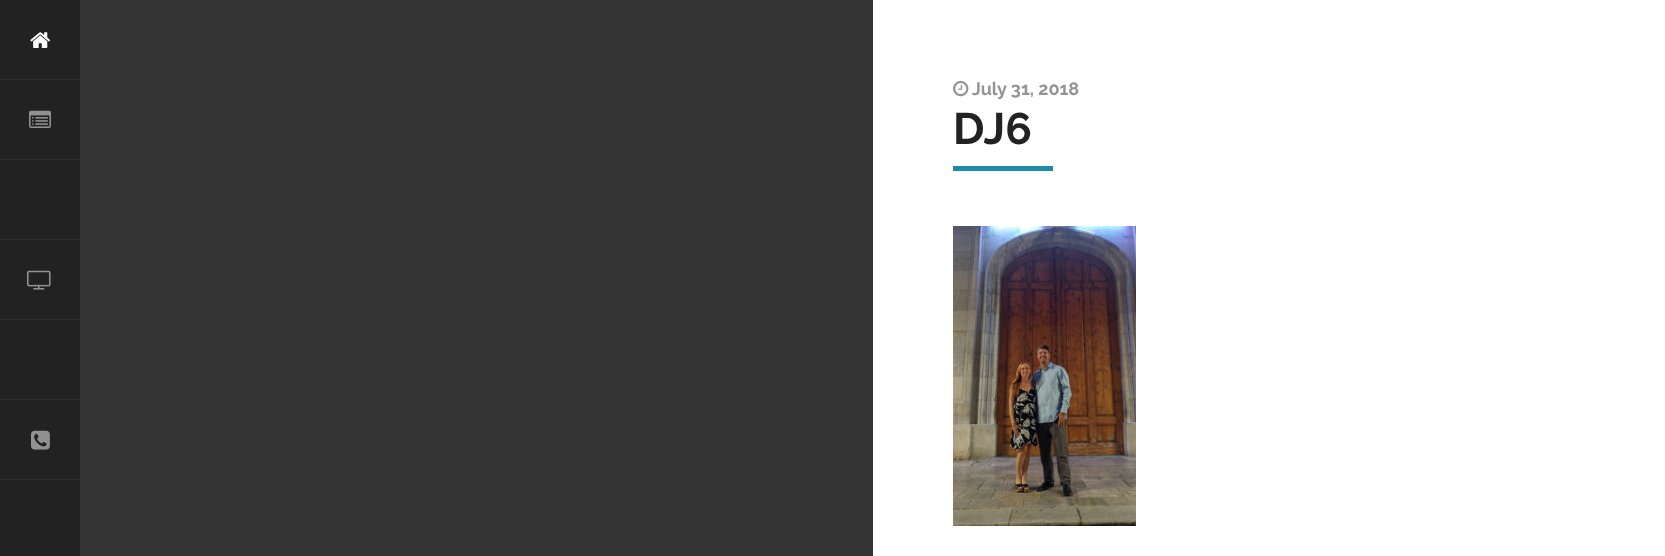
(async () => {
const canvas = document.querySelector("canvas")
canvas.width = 1665
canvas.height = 556
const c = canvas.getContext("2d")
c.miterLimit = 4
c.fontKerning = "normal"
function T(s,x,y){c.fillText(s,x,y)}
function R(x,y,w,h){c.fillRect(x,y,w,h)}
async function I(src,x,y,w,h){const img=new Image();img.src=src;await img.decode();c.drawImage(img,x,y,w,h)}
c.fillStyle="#fff"
R(0,0,1665,556)
c.fillStyle="#222"
R(0,0,80,556)
c.fillStyle="#2d2d2d"
R(0,79,80,1)
await I("1.png",30,32,21,16)
R(0,159,80,1)
await I("2.png",29,110,22,18)
R(0,239,80,1)
R(0,319,80,1)
await I("3.png",27,270,24,20)
R(0,399,80,1)
R(0,479,80,1)
await I("4.png",31,430,19,20)
c.fillStyle="#333"
R(80,0,793,556)
await I("5.png",953,80,16,17)
c.font="bold 18px Raleway"
c.fillStyle="#949494"
T("July 31, 2018",972,95)
c.font="bold 44px Raleway"
c.fillStyle="#222"
T("DJ6",953,144)
c.fillStyle="#1d8caa"
R(953,166,100,5)
await I("6.png",953,226,183,300)
})()
